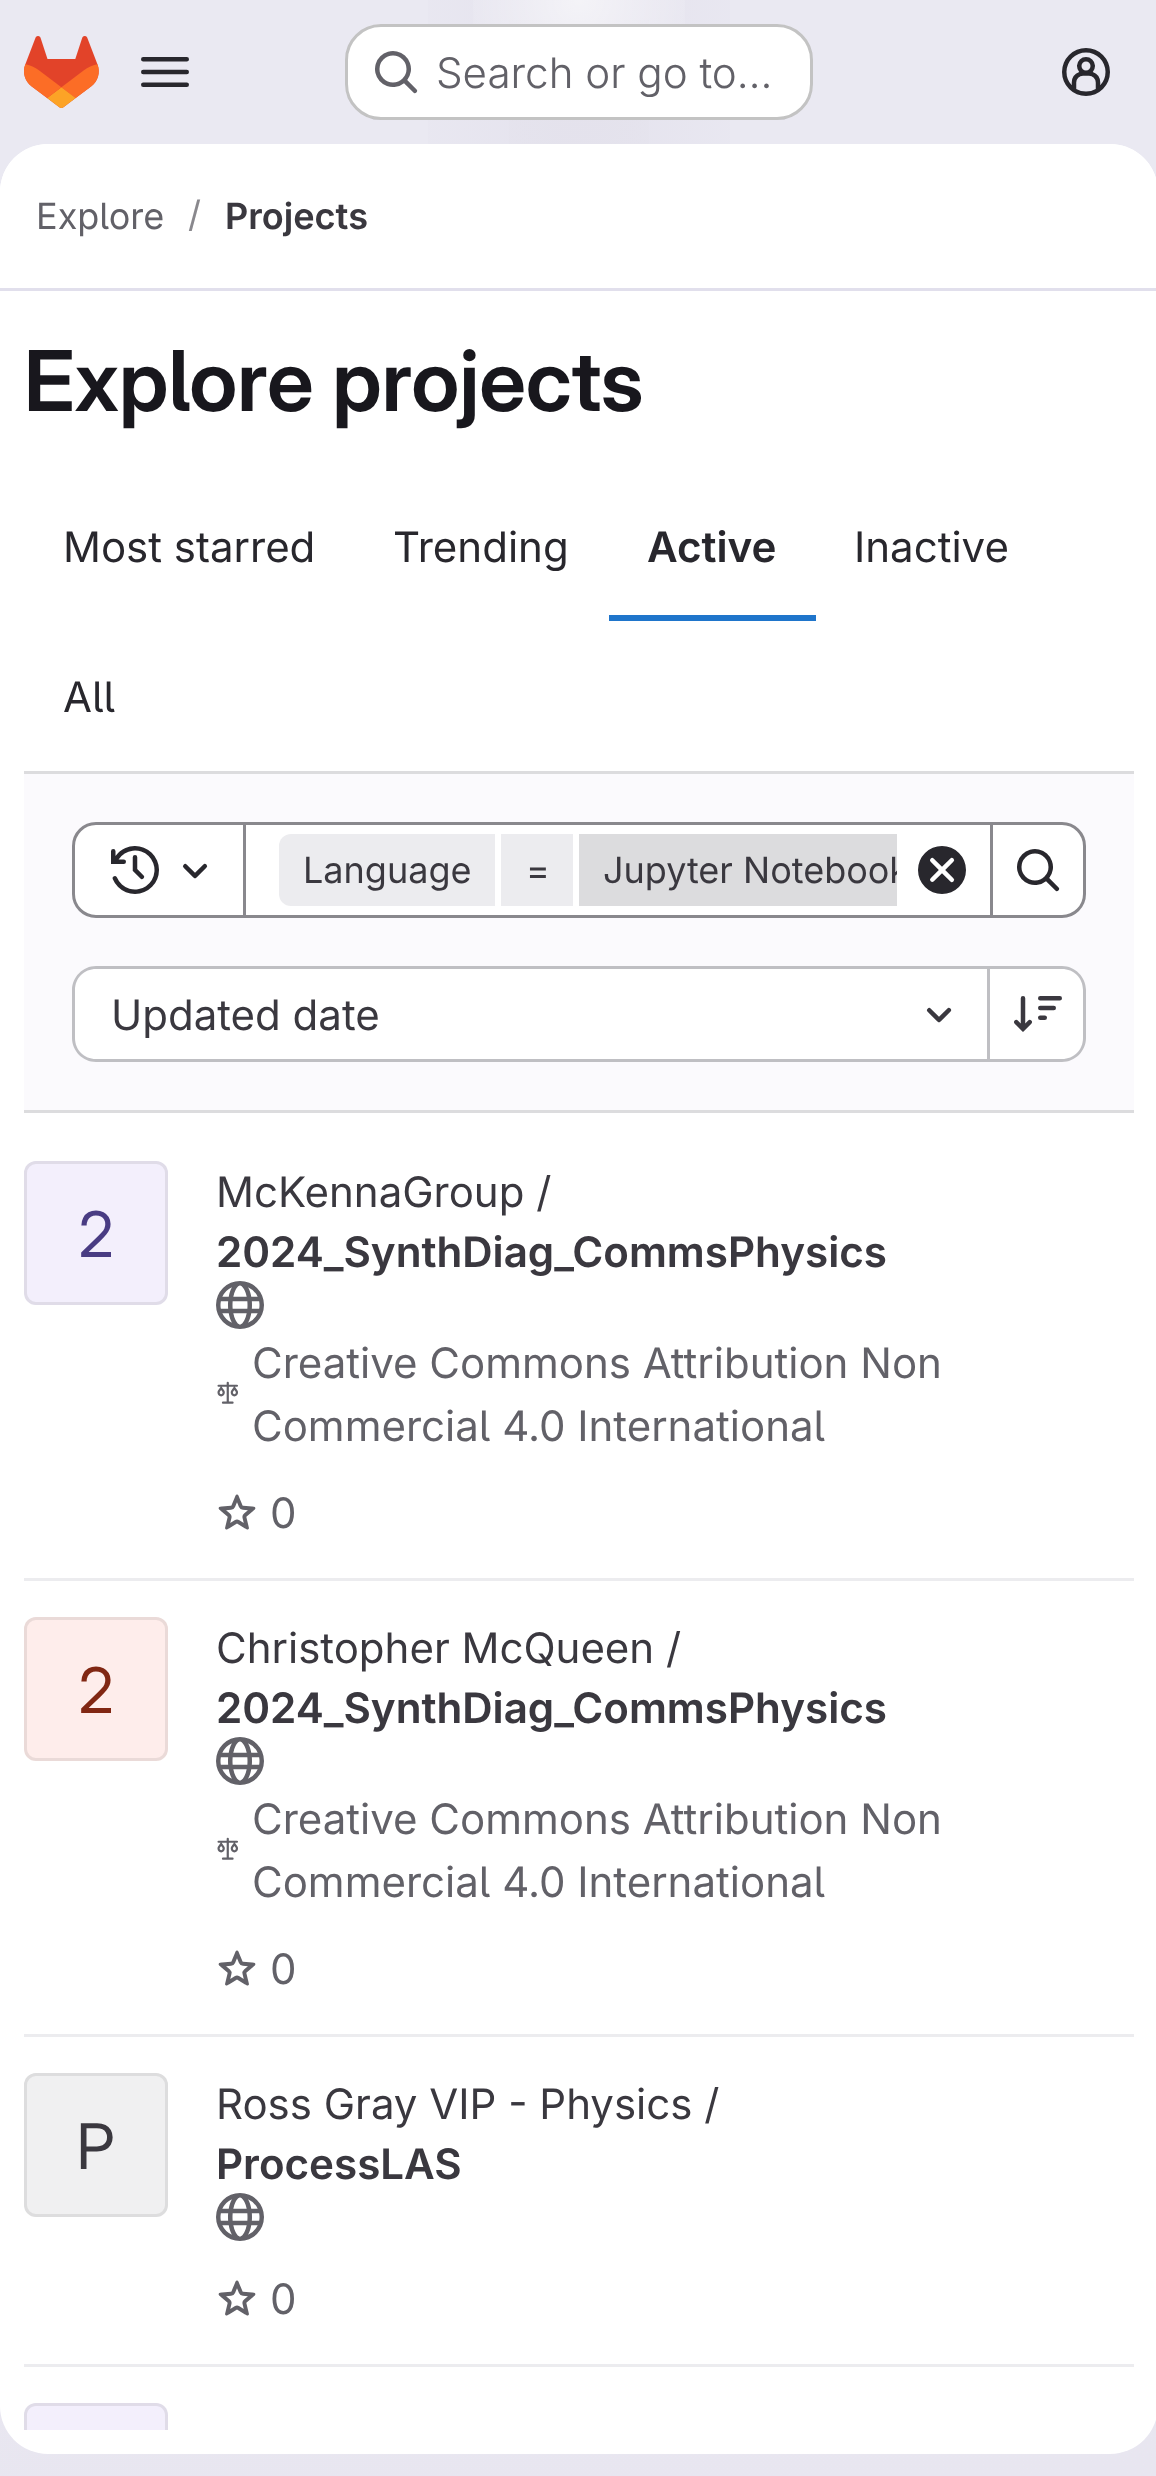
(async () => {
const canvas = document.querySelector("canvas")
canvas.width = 1156
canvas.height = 2476
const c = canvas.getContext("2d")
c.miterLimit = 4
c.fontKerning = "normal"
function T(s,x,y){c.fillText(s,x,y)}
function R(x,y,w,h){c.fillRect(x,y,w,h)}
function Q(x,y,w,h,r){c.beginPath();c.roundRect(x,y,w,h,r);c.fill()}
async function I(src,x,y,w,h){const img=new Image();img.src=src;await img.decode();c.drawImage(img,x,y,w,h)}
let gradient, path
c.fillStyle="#fff"
R(0,0,1156,2476)
gradient = c.createLinearGradient(808,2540,350,-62)
gradient.addColorStop(0,"#e8e6f0")
gradient.addColorStop(.7,"#eae9f2")
c.fillStyle = gradient
R(0,0,1156,2476)
gradient = c.createRadialGradient(579,0,0,579,0,579)
gradient.addColorStop(0,"#e4e2ed")
gradient.addColorStop(.36,"#e4e2ed00")
c.fillStyle = gradient
c.beginPath()
c.rect(428,0,302,144)
c.save()
c.clip()
c.scale(1,2478 / 579)
c.fillRect(0,0,1156,579)
c.restore()
gradient = c.createRadialGradient(579,0,0,579,0,579)
gradient.addColorStop(0,"#e4e2ec")
gradient.addColorStop(.26,"#e4e2ec00")
c.fillStyle = gradient
c.beginPath()
c.rect(509,20,140,124)
c.save()
c.clip()
c.scale(1,2478 / 579)
c.fillRect(0,0,1156,579)
c.restore()
gradient = c.createRadialGradient(579,0,0,579,0,2545)
gradient.addColorStop(0,"#ffffff99")
gradient.addColorStop(.05,"#ffffff00")
c.fillStyle = gradient
R(473,0,212,108)
await I("1.png",24,36,75,72)
await I("2.png",141,57,48,30)
c.fillStyle="#fff"
Q(345,24,468,96,36)
c.beginPath()
c.roundRect(346.5,25.5,465,93,34.5)
c.strokeStyle="#0505063d"
c.lineWidth=3
c.stroke()
await I("3.png",375,51,43,43)
c.font="300 42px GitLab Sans"
c.fillStyle="#626168"
T("Search or go to…",436,88)
await I("4.png",1062,48,48,48)
c.fillStyle="#fff"
Q(0,144,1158,2310,48)
path = new Path2D("M48 144h1062c26.5 0 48 21.5 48 48v99h-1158v-99c0-26.5 21.5-48 48-48z")
c.fill(path)
c.fillStyle="#e1dfec"
R(0,288,1156,3)
c.font="36px GitLab Sans"
c.fillStyle="#626168"
T("Explore",36,229)
c.fillStyle="#89888d"
T("/",188,227)
c.font="600 36px 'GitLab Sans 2'"
c.fillStyle="#3a383f"
T("Projects",225,229)
c.font="600 84px GitLab Sans"
c.fillStyle="#18171d"
T("Explore projects",24,411)
c.font="42px GitLab Sans"
c.fillStyle="#28272d"
T("Most starred",63,562)
T("Trending",393,562)
c.font="600 42px 'GitLab Sans 2'"
T("Active",647,562)
c.fillStyle="#1f75cb"
R(609,615,207,6)
c.font="42px GitLab Sans"
c.fillStyle="#28272d"
T("Inactive",854,562)
T("All",63,712)
c.fillStyle="#fbfafd"
R(24,774,1110,336)
c.fillStyle="#dcdcde"
R(24,771,1110,3)
R(24,1110,1110,3)
c.fillStyle="#fff"
c.beginPath()
c.rect(244.5,823.5,747,93)
c.fill()
c.strokeStyle="#89888d"
c.stroke()
c.beginPath()
c.roundRect(73.5,823.5,171,93,[22.5,0,0,22.5])
c.fill()
c.stroke()
await I("5.png",111,846,48,48)
await I("6.png",182,863,26,16)
c.fillStyle="#ececef"
c.beginPath()
c.roundRect(279,834,216,72,[12,0,0,12])
c.fill()
c.font="36px GitLab Sans"
c.fillStyle="#3a383f"
T("Language",303,883)
c.fillStyle="#ececef"
R(501,834,72,72)
c.fillStyle="#3a383f"
T("=",526,883)
c.fillStyle="#dcdcde"
R(579,834,318,72)
c.save()
c.beginPath()
c.rect(279,834,618,72)
c.clip()
c.fillStyle="#3a383f"
T("Jupyter Notebook",603,883)
c.restore()
await I("7.png",918,846,48,48)
c.fillStyle="#fff"
c.beginPath()
c.roundRect(991.5,823.5,93,93,[0,22.5,22.5,0])
c.fill()
c.stroke()
await I("8.png",1017,849,43,43)
c.beginPath()
c.roundRect(75,969,912,90,[21,0,0,21])
c.fill()
c.fillStyle="#bfbfc3"
path = new Path2D("M96 966h891v96h-891c-13 0-24-11-24-24v-48c0-13 11-24 24-24zm0 3h891v90h-891c-12 0-21-9-21-21v-48c0-12 9-21 21-21z")
c.fill(path,"evenodd")
c.save()
c.beginPath()
c.rect(111,990,270,48)
c.clip()
c.font="42px GitLab Sans"
c.fillStyle="#3a383f"
T("Updated date",111,1030)
c.restore()
await I("9.png",926,1007,26,16)
c.fillStyle="#fff"
c.beginPath()
c.roundRect(990,969,93,90,[0,21,21,0])
c.fill()
c.fillStyle="#bfbfc3"
path = new Path2D("M990 966h72c13 0 24 11 24 24v48c0 13-11 24-24 24h-72zm0 3h72c12 0 21 9 21 21v48c0 12-9 21-21 21h-72z")
c.fill(path,"evenodd")
R(987,966,3,96)
await I("10.png",1014,996,48,36)
c.fillStyle="#ececef"
R(24,1578,1110,3)
c.fillStyle="#f3effc"
Q(24,1161,144,144,12)
c.beginPath()
c.roundRect(25.5,1162.5,141,141,10.5)
c.strokeStyle="#05050614"
c.stroke()
c.font="63px 'GitLab Sans 2'"
c.fillStyle="#493c83"
T("2",78,1257)
c.font="42px GitLab Sans"
c.fillStyle="#3a383f"
T("McKennaGroup /",216,1207)
c.font="600 42px 'GitLab Sans 2'"
T("2024_SynthDiag_CommsPhysics",216,1267)
await I("11.png",216,1281,48,48)
c.font="42px GitLab Sans"
c.fillStyle="#626168"
T("Creative Commons Attribution Non",252,1378)
await I("12.png",217,1381,21,23)
T("Commercial 4.0 International",252,1441)
await I("13.png",218,1494,38,36)
T("0",270,1528)
c.fillStyle="#ececef"
R(24,2034,1110,3)
c.fillStyle="#feedeb"
Q(24,1617,144,144,12)
c.beginPath()
c.roundRect(25.5,1618.5,141,141,10.5)
c.stroke()
c.font="63px 'GitLab Sans 2'"
c.fillStyle="#812713"
T("2",78,1713)
c.font="42px GitLab Sans"
c.fillStyle="#3a383f"
T("Christopher McQueen /",216,1663)
c.font="600 42px 'GitLab Sans 2'"
T("2024_SynthDiag_CommsPhysics",216,1723)
await I("14.png",216,1737,48,48)
c.font="42px GitLab Sans"
c.fillStyle="#626168"
T("Creative Commons Attribution Non",252,1834)
await I("12.png",217,1837,21,23)
T("Commercial 4.0 International",252,1897)
await I("15.png",218,1950,38,36)
T("0",270,1984)
c.fillStyle="#ececef"
R(24,2364,1110,3)
c.fillStyle="#f0f0f1"
Q(24,2073,144,144,12)
c.beginPath()
c.roundRect(25.5,2074.5,141,141,10.5)
c.stroke()
c.font="63px 'GitLab Sans 2'"
c.fillStyle="#3a383f"
T("P",76,2169)
c.font="42px GitLab Sans"
T("Ross Gray VIP - Physics /",216,2119)
c.font="600 42px 'GitLab Sans 2'"
T("ProcessLAS",216,2179)
await I("16.png",216,2193,48,48)
await I("17.png",218,2280,38,36)
c.font="42px GitLab Sans"
c.fillStyle="#626168"
T("0",270,2314)
c.fillStyle="#f3effc"
c.beginPath()
c.roundRect(24,2403,144,27,[12,12,0,0])
c.fill()
c.save()
c.beginPath()
c.rect(0,291,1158,2139)
c.clip()
c.fillStyle="#05050614"
path = new Path2D("M36 2403c-7 0-12 5-12 12v33l3 1v-34c0-5 4-9 9-9h120c5 0 9 4 9 9v39h3v-39c0-7-5-12-12-12z")
c.fill(path)
c.restore()
})()
